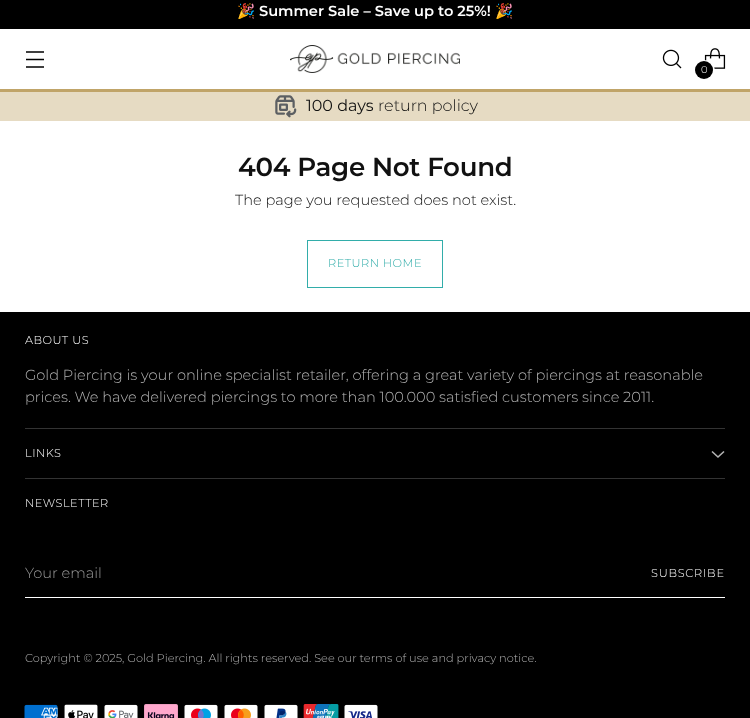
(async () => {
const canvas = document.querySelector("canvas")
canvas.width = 750
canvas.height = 718
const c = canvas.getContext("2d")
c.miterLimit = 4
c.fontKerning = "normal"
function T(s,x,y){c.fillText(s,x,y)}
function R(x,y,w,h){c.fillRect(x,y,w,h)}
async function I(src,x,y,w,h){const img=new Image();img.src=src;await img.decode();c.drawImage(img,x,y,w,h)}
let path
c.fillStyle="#fff"
R(0,0,750,718)
c.fillStyle="#000"
R(0,0,750,29)
c.font="bold 14.6px Noto Color Emoji"
c.fillStyle="#fff"
T("🎉",237,16)
c.font="600 14.6px Montserrat"
T("Summer Sale – Save up to 25%!",259,16)
c.font="bold 14.6px Noto Color Emoji"
T("🎉",495,16)
path = new Path2D("M26 59.5h18m-18-7.5h18m-18 15h18")
c.strokeStyle="#000"
c.lineWidth=1.3
c.stroke(path)
await I("1.png",290,45,170,28)
await I("2.png",662,49,20,20)
await I("3.png",704,48,22,21)
c.beginPath()
c.arc(704.5,70.5,9.5,0,7)
c.strokeStyle="#fff"
c.lineWidth=2
c.stroke()
c.fillStyle="#000"
c.beginPath()
c.arc(704,70,9,0,7)
c.fill()
c.font="300 10px Montserrat"
c.fillStyle="#fff"
T("0",701,73)
c.fillStyle="#e6dbc3"
R(0,92,750,29)
c.fillStyle="#c0a468"
R(0,89,750,3)
await I("4.png",275,95,22,23)
c.font="16px Montserrat"
c.fillStyle="#111"
T("100 days",306,111)
c.font="300 16px Montserrat"
T("return policy",378,111)
c.letterSpacing="-0.25px"
c.font="600 26.1px Montserrat"
T("404 Page Not Found",238,176)
c.letterSpacing="0px"
c.font="300 14.6px Montserrat"
T("The page you requested does not exist.",235,205)
c.strokeStyle="#32adaa"
c.lineWidth=1
c.strokeRect(307.5,240.5,135,47)
c.letterSpacing="0.5px"
c.font="300 11.35px Montserrat"
c.fillStyle="#32adaa"
T("RETURN HOME",328,267)
c.fillStyle="#000"
R(0,312,750,406)
c.fillStyle="#333"
R(25,428,700,1)
c.fillStyle="#fff"
T("ABOUT US",25,344)
c.letterSpacing="0px"
c.font="300 14.6px Montserrat"
c.fillStyle="#b3b3b3"
T("Gold Piercing is your online specialist retailer, offering a great variety of piercings at reasonable",25,380)
T("prices. We have delivered piercings to more than 100.000 satisfied customers since 2011.",25,402)
c.fillStyle="#333"
R(25,478,700,1)
c.letterSpacing="0.5px"
c.font="300 11.35px Montserrat"
c.fillStyle="#fff"
T("LINKS",25,457)
path = new Path2D("M712 451.5l6 5.5l6-5.5")
c.strokeStyle="#b3b3b3"
c.lineWidth=1.6
c.stroke(path)
T("NEWSLETTER",25,507)
R(25,597,700,1)
c.letterSpacing="0px"
c.font="300 14.6px Montserrat"
c.fillStyle="#999"
T("Your email",25,578)
c.letterSpacing="0.75px"
c.font="300 11.35px Montserrat"
c.fillStyle="#fff"
T("SUBSCRIBE",651,577)
c.letterSpacing="0px"
c.fillStyle="#b3b3b3"
T("Copyright © 2025, Gold Piercing. All rights reserved. See our terms of use and privacy notice.",25,662)
await I("5.png",24,704,34,14)
await I("6.png",64,704,34,14)
await I("7.png",104,704,34,14)
await I("8.png",144,704,34,14)
await I("9.png",184,704,34,14)
await I("10.png",224,704,34,14)
await I("11.png",264,704,34,14)
await I("12.png",303,704,36,14)
await I("13.png",344,704,34,14)
})()
